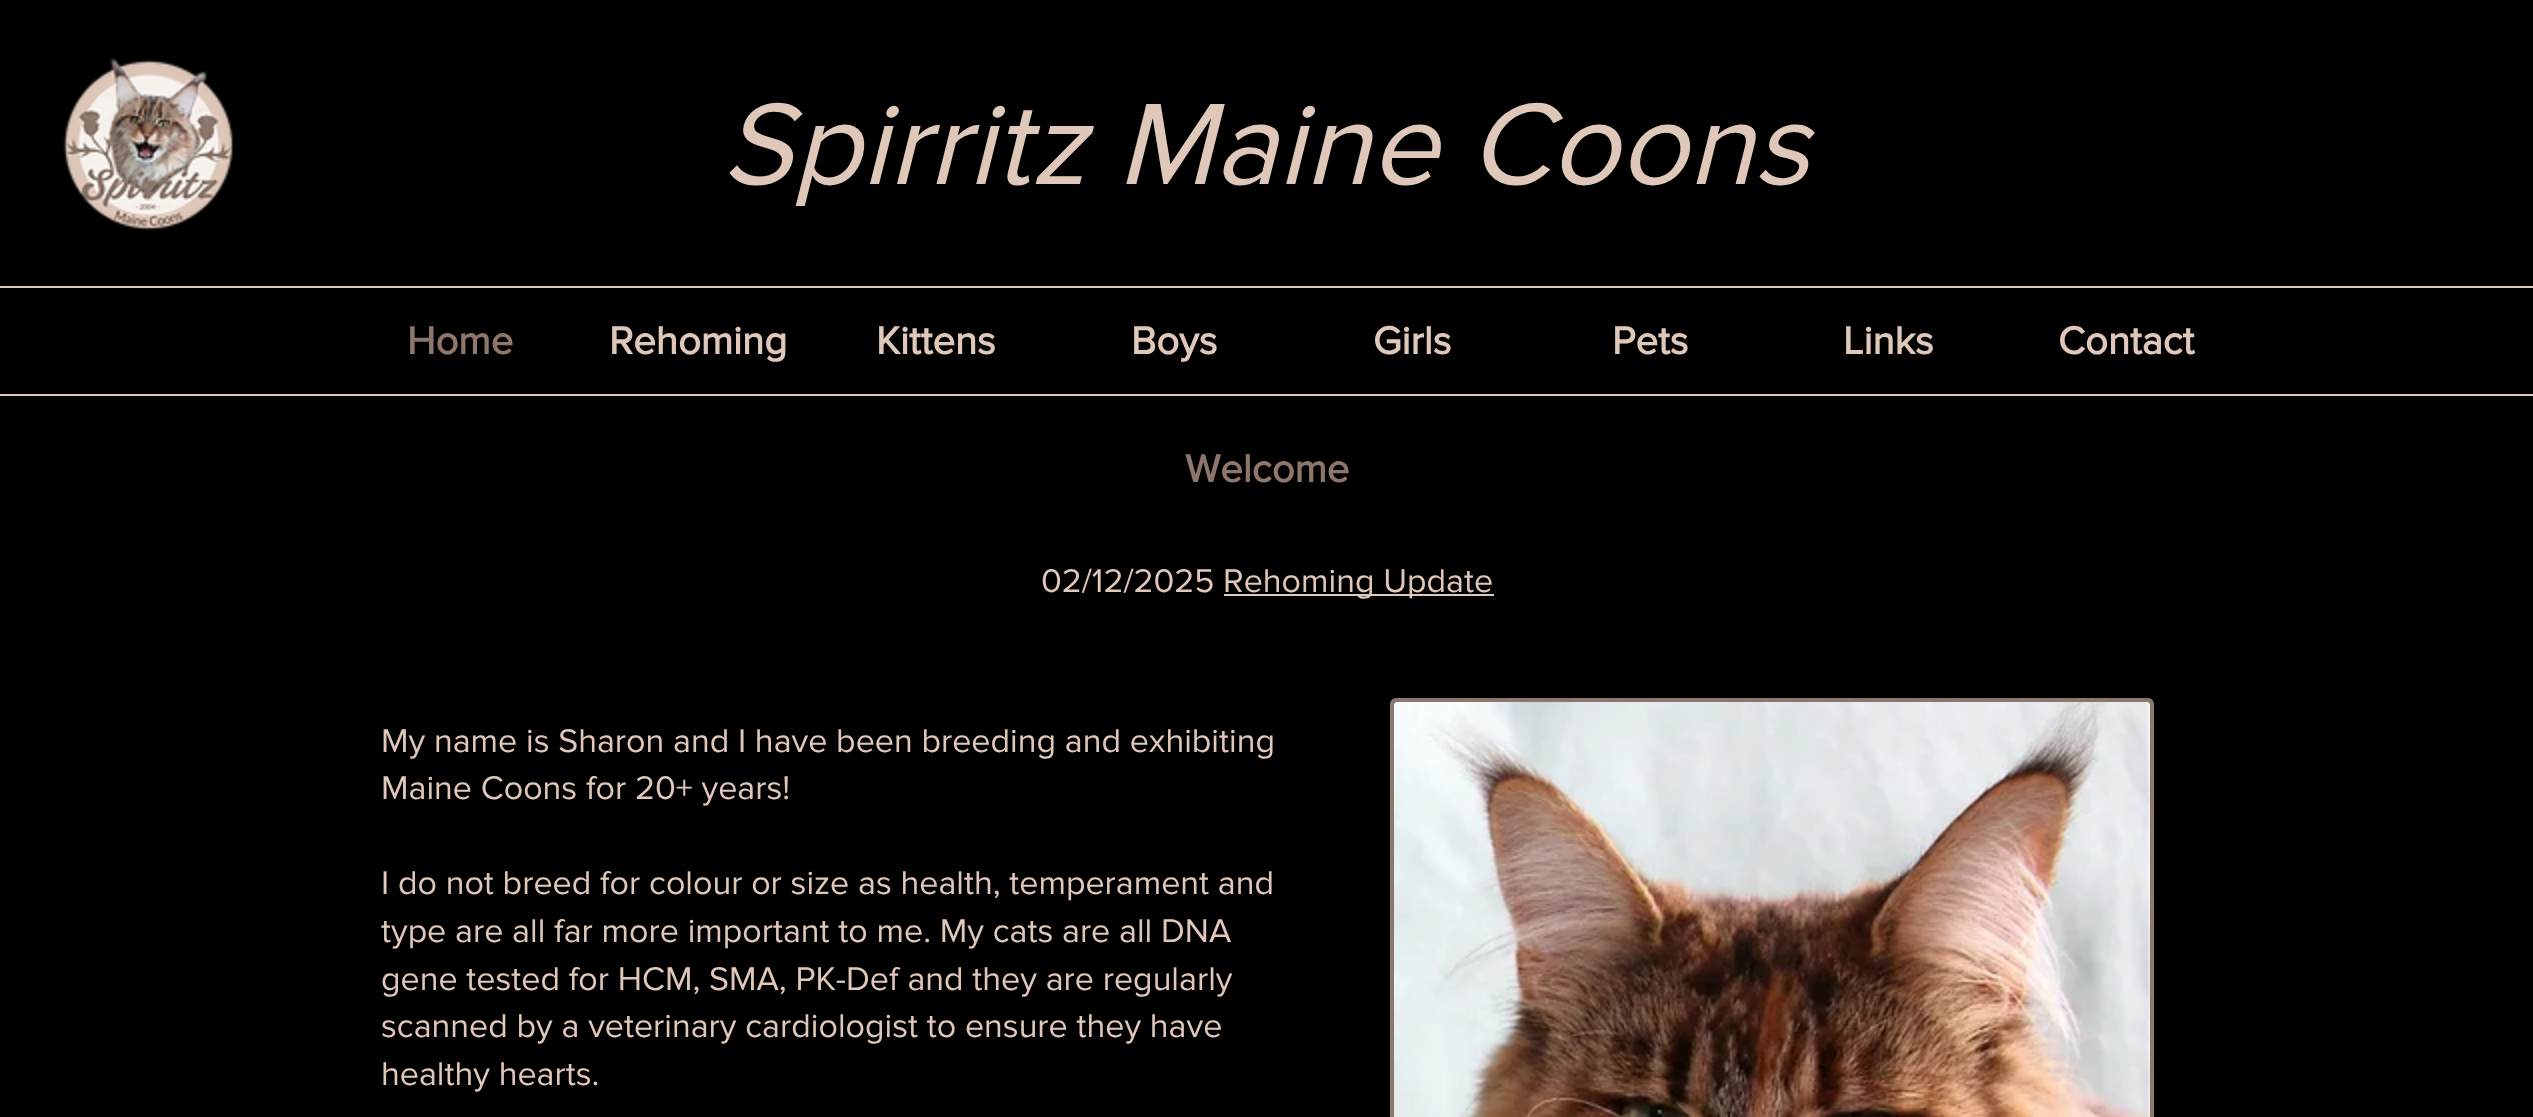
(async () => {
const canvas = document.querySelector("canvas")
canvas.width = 2533
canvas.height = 1117
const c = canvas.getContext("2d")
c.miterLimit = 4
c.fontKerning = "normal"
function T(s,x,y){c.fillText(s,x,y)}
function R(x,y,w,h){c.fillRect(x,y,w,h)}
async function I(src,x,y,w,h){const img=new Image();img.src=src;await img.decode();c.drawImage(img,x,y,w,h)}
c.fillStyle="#000"
R(0,0,2533,1117)
await I("1.png",63,56,187,175)
c.font="italic 120px 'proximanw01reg'"
c.fillStyle="#dfc8ba"
T("Spirritz Maine Coons",722,184)
R(0,286,2533,2)
R(0,394,2533,2)
c.font="bold 40px 'proximanw01reg'"
c.fillStyle="#8d776c"
T("Home",407,354)
c.fillStyle="#dfc8ba"
T("Rehoming",609,354)
T("Kittens",876,354)
T("Boys",1131,354)
T("Girls",1373,354)
T("Pets",1612,354)
T("Links",1843,354)
T("Contact",2058,354)
c.fillStyle="#8d776c"
T("Welcome",1185,482)
c.font="34px 'proximanw01reg'"
c.fillStyle="#dfc8ba"
T("02/12/2025",1041,592)
R(1224,594,270,2)
T("Rehoming Update",1223,592)
T("My name is Sharon and I have been breeding and exhibiting",381,752)
T("Maine Coons for 20+ years!",381,799)
T("I do not breed for colour or size as health, temperament and",381,894)
T("type are all far more important to me. My cats are all DNA",381,942)
T("gene tested for HCM, SMA, PK-Def and they are regularly",381,990)
T("scanned by a veterinary cardiologist to ensure they have",381,1037)
T("healthy hearts.",381,1085)
c.beginPath()
c.roundRect(1392,700,760,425,4)
c.strokeStyle="#8d776c"
c.lineWidth=4
c.stroke()
await I("2.png",1394,702,756,415)
})()
